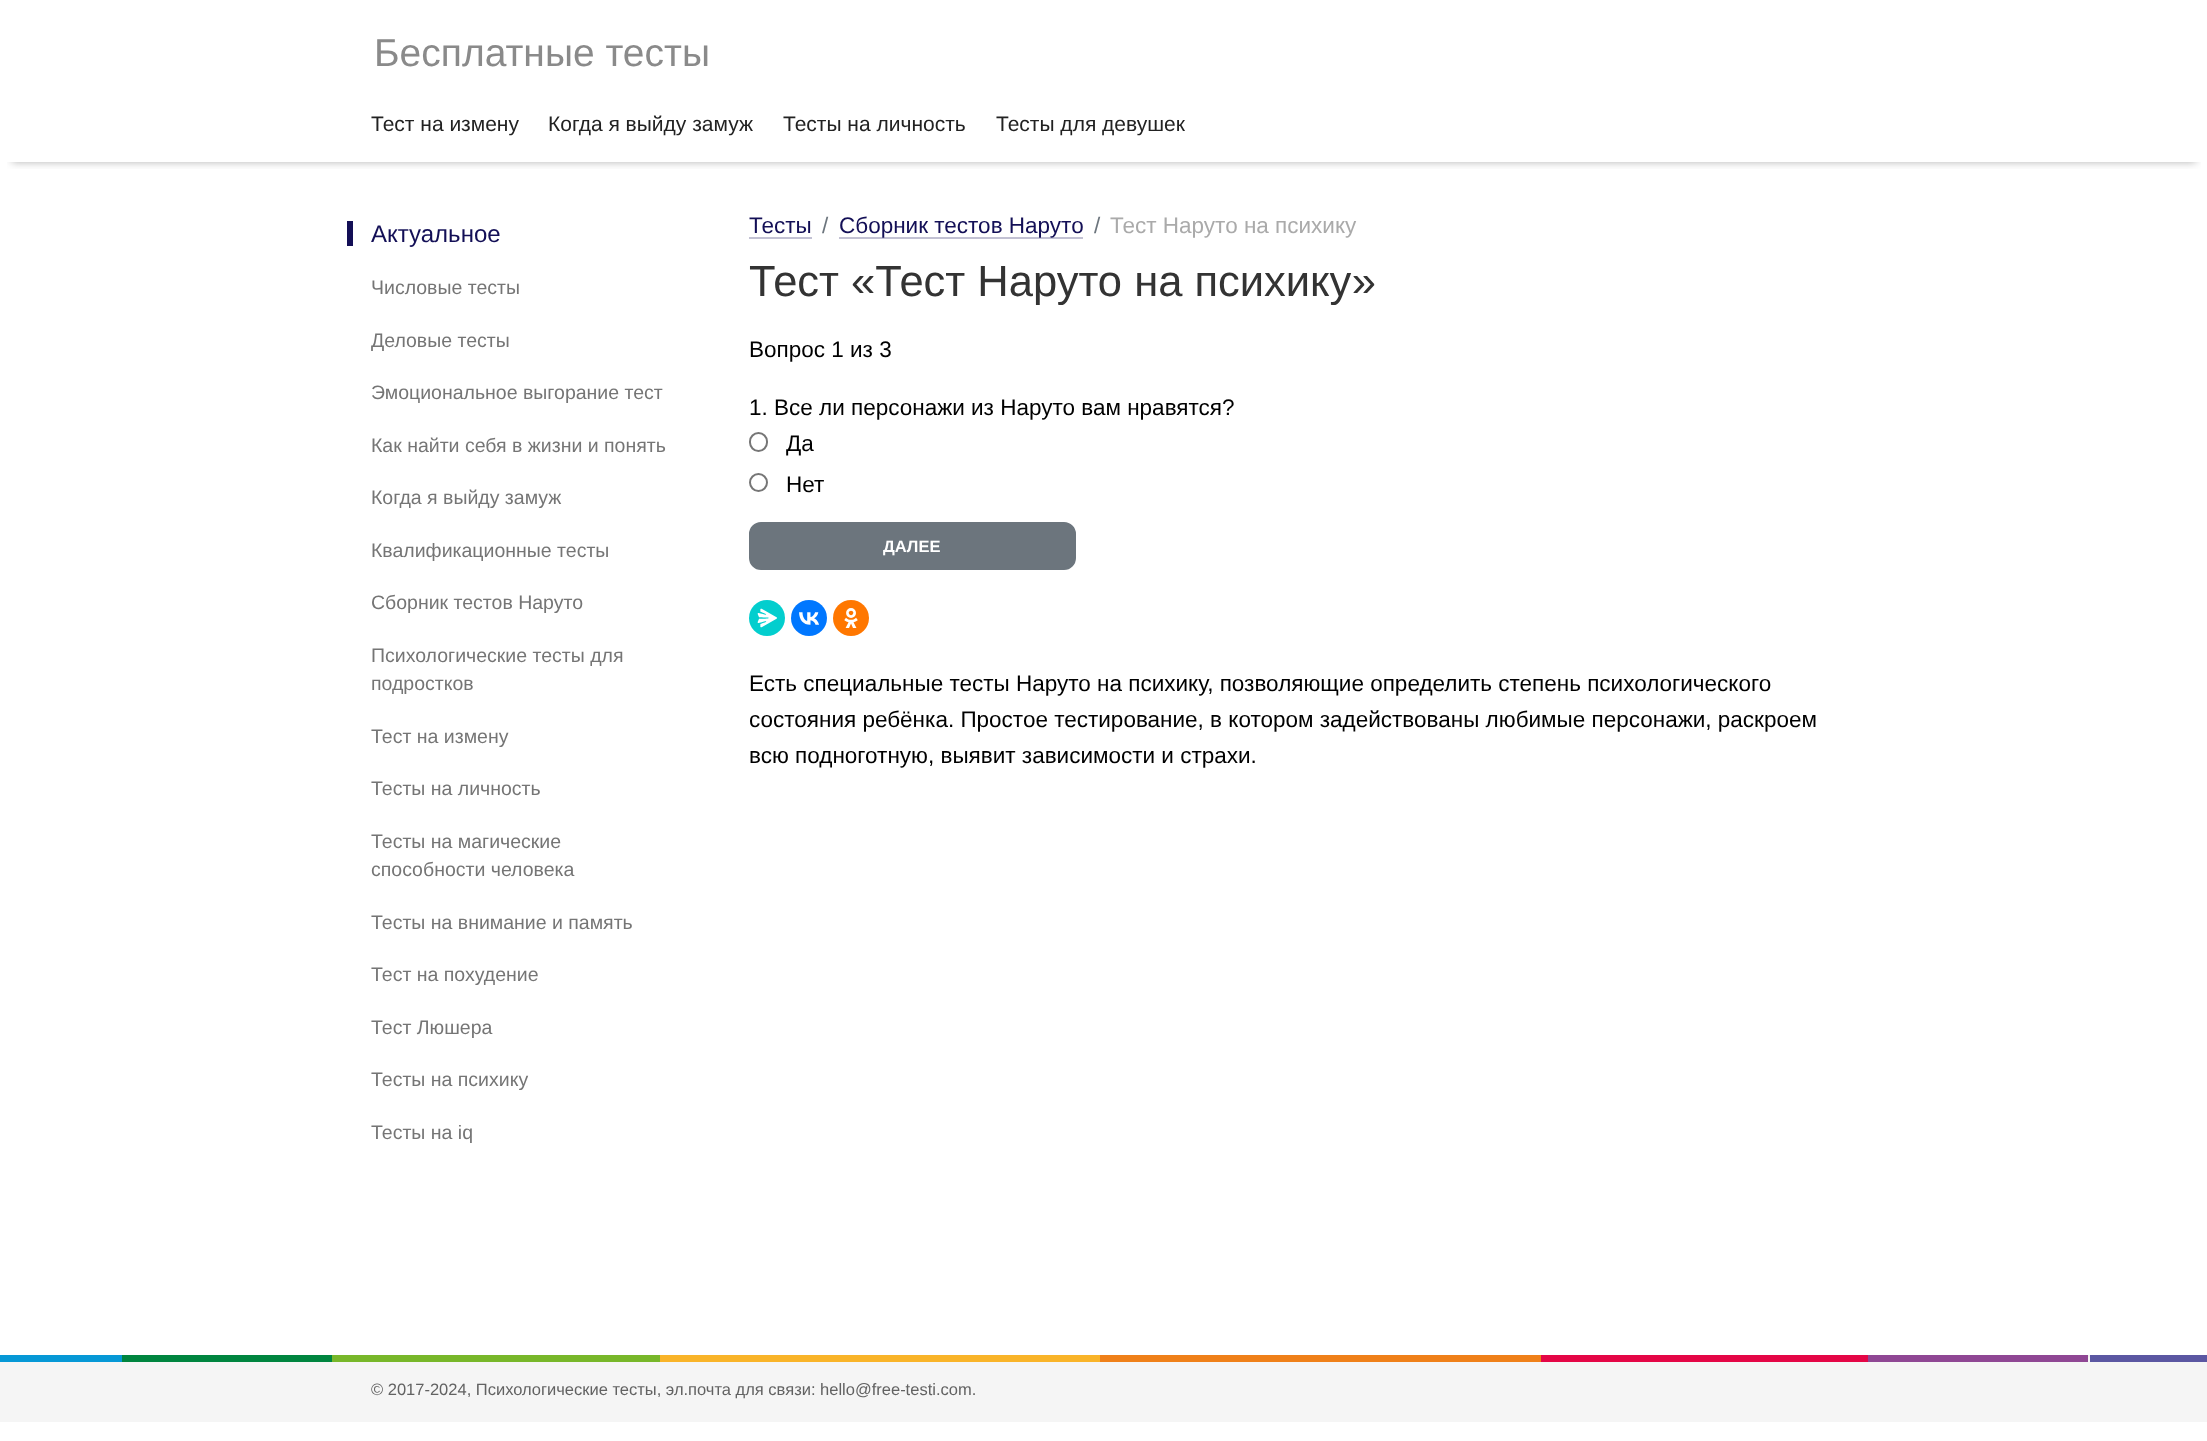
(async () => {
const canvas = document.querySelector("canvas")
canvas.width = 2207
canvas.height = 1441
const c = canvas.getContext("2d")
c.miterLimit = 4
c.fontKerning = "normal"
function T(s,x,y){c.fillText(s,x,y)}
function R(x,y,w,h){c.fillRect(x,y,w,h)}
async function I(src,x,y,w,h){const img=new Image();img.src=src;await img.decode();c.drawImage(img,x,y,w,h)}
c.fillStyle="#fff"
R(0,0,2207,1441)
c.font="39px Liberation Sans"
c.fillStyle="#8a8a8a"
T("Бесплатные тесты",374,66)
c.save()
c.beginPath()
c.rect(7,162,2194,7)
c.clip()
c.fillStyle="#0000004d"
c.filter="blur(4.5px)"
c.beginPath()
c.rect(12,108,2184,54)
c.fill()
c.filter="none"
c.restore()
c.font="21px Liberation Sans"
c.fillStyle="#222"
T("Тест на измену",371,131)
T("Когда я выйду замуж",548,131)
T("Тесты на личность",783,131)
T("Тесты для девушек",996,131)
c.fillStyle="#130f56"
R(347,221,6,25)
c.font="24px Liberation Sans"
T("Актуальное",371,242)
c.font="19.5px Liberation Sans"
c.fillStyle="#757575"
T("Числовые тесты",371,294)
T("Деловые тесты",371,347)
T("Эмоциональное выгорание тест",371,399)
T("Как найти себя в жизни и понять",371,452)
T("Когда я выйду замуж",371,504)
T("Квалификационные тесты",371,557)
T("Сборник тестов Наруто",371,609)
T("Психологические тесты для",371,662)
T("подростков",371,690)
T("Тест на измену",371,743)
T("Тесты на личность",371,795)
T("Тесты на магические",371,848)
T("способности человека",371,876)
T("Тесты на внимание и память",371,929)
T("Тест на похудение",371,981)
T("Тест Люшера",371,1034)
T("Тесты на психику",371,1086)
T("Тесты на iq",371,1139)
c.font="22.5px Liberation Sans"
c.fillStyle="#130f56"
T("Тесты",749,233)
c.fillStyle="#c2c1d3"
R(749,237,63,2)
c.fillStyle="#6c757d"
T("/",822,233)
c.fillStyle="#c2c1d3"
R(839,237,244,2)
c.fillStyle="#130f56"
T("Сборник тестов Наруто",839,233)
c.fillStyle="#6c757d"
T("/",1094,233)
c.fillStyle="#aaa"
T("Тест Наруто на психику",1110,233)
c.font="43.5px Liberation Sans"
c.fillStyle="#333"
T("Тест «Тест Наруто на психику»",749,296)
c.font="22.5px Liberation Sans"
c.fillStyle="#000"
T("Вопрос 1 из 3",749,357)
T("1. Все ли персонажи из Наруто вам нравятся?",749,415)
c.beginPath()
c.roundRect(750,433,17,18,8.5)
c.strokeStyle="#767676"
c.lineWidth=2
c.stroke()
T("Да",786,451)
c.beginPath()
c.arc(758.5,482.5,8.5,0,7)
c.stroke()
T("Нет",786,492)
c.fillStyle="#6c757d"
c.beginPath()
c.roundRect(750,523,325,46,11)
c.fill()
c.strokeStyle="#6c757d"
c.stroke()
c.font="bold 16.5px Liberation Sans"
c.fillStyle="#fff"
T("ДАЛЕЕ",883,552)
c.fillStyle="#03cece"
c.beginPath()
c.arc(767,618,18,0,7)
c.fill()
await I("1.png",757,608,20,20)
c.fillStyle="#07f"
c.beginPath()
c.arc(809,618,18,0,7)
c.fill()
await I("2.png",799,612,20,13)
c.fillStyle="#f70"
c.beginPath()
c.arc(851,618,18,0,7)
c.fill()
await I("3.png",844,608,14,20)
c.font="22.5px Liberation Sans"
c.fillStyle="#000"
T("Есть специальные тесты Наруто на психику, позволяющие определить степень психологического",749,691)
T("состояния ребёнка. Простое тестирование, в котором задействованы любимые персонажи, раскроем",749,727)
T("всю подноготную, выявит зависимости и страхи.",749,763)
c.fillStyle="#f5f5f5"
R(0,1357,2207,65)
c.fillStyle="#0698d6"
R(0,1355,122,7)
c.fillStyle="#00853f"
R(122,1355,210,7)
c.fillStyle="#78b72a"
R(332,1355,328,7)
c.fillStyle="#f9b429"
R(660,1355,440,7)
c.fillStyle="#ef8019"
R(1100,1355,441,7)
c.fillStyle="#e40646"
R(1541,1355,327,7)
c.fillStyle="#8f4794"
R(1868,1355,220,7)
c.fillStyle="#5b57a2"
R(2090,1355,117,7)
c.fillStyle="#eee"
R(2088,1355,2,2)
c.font="16.5px Liberation Sans"
c.fillStyle="#626262"
T("© 2017-2024, Психологические тесты, эл.почта для связи: hello@free-testi.com.",371,1395)
})()
